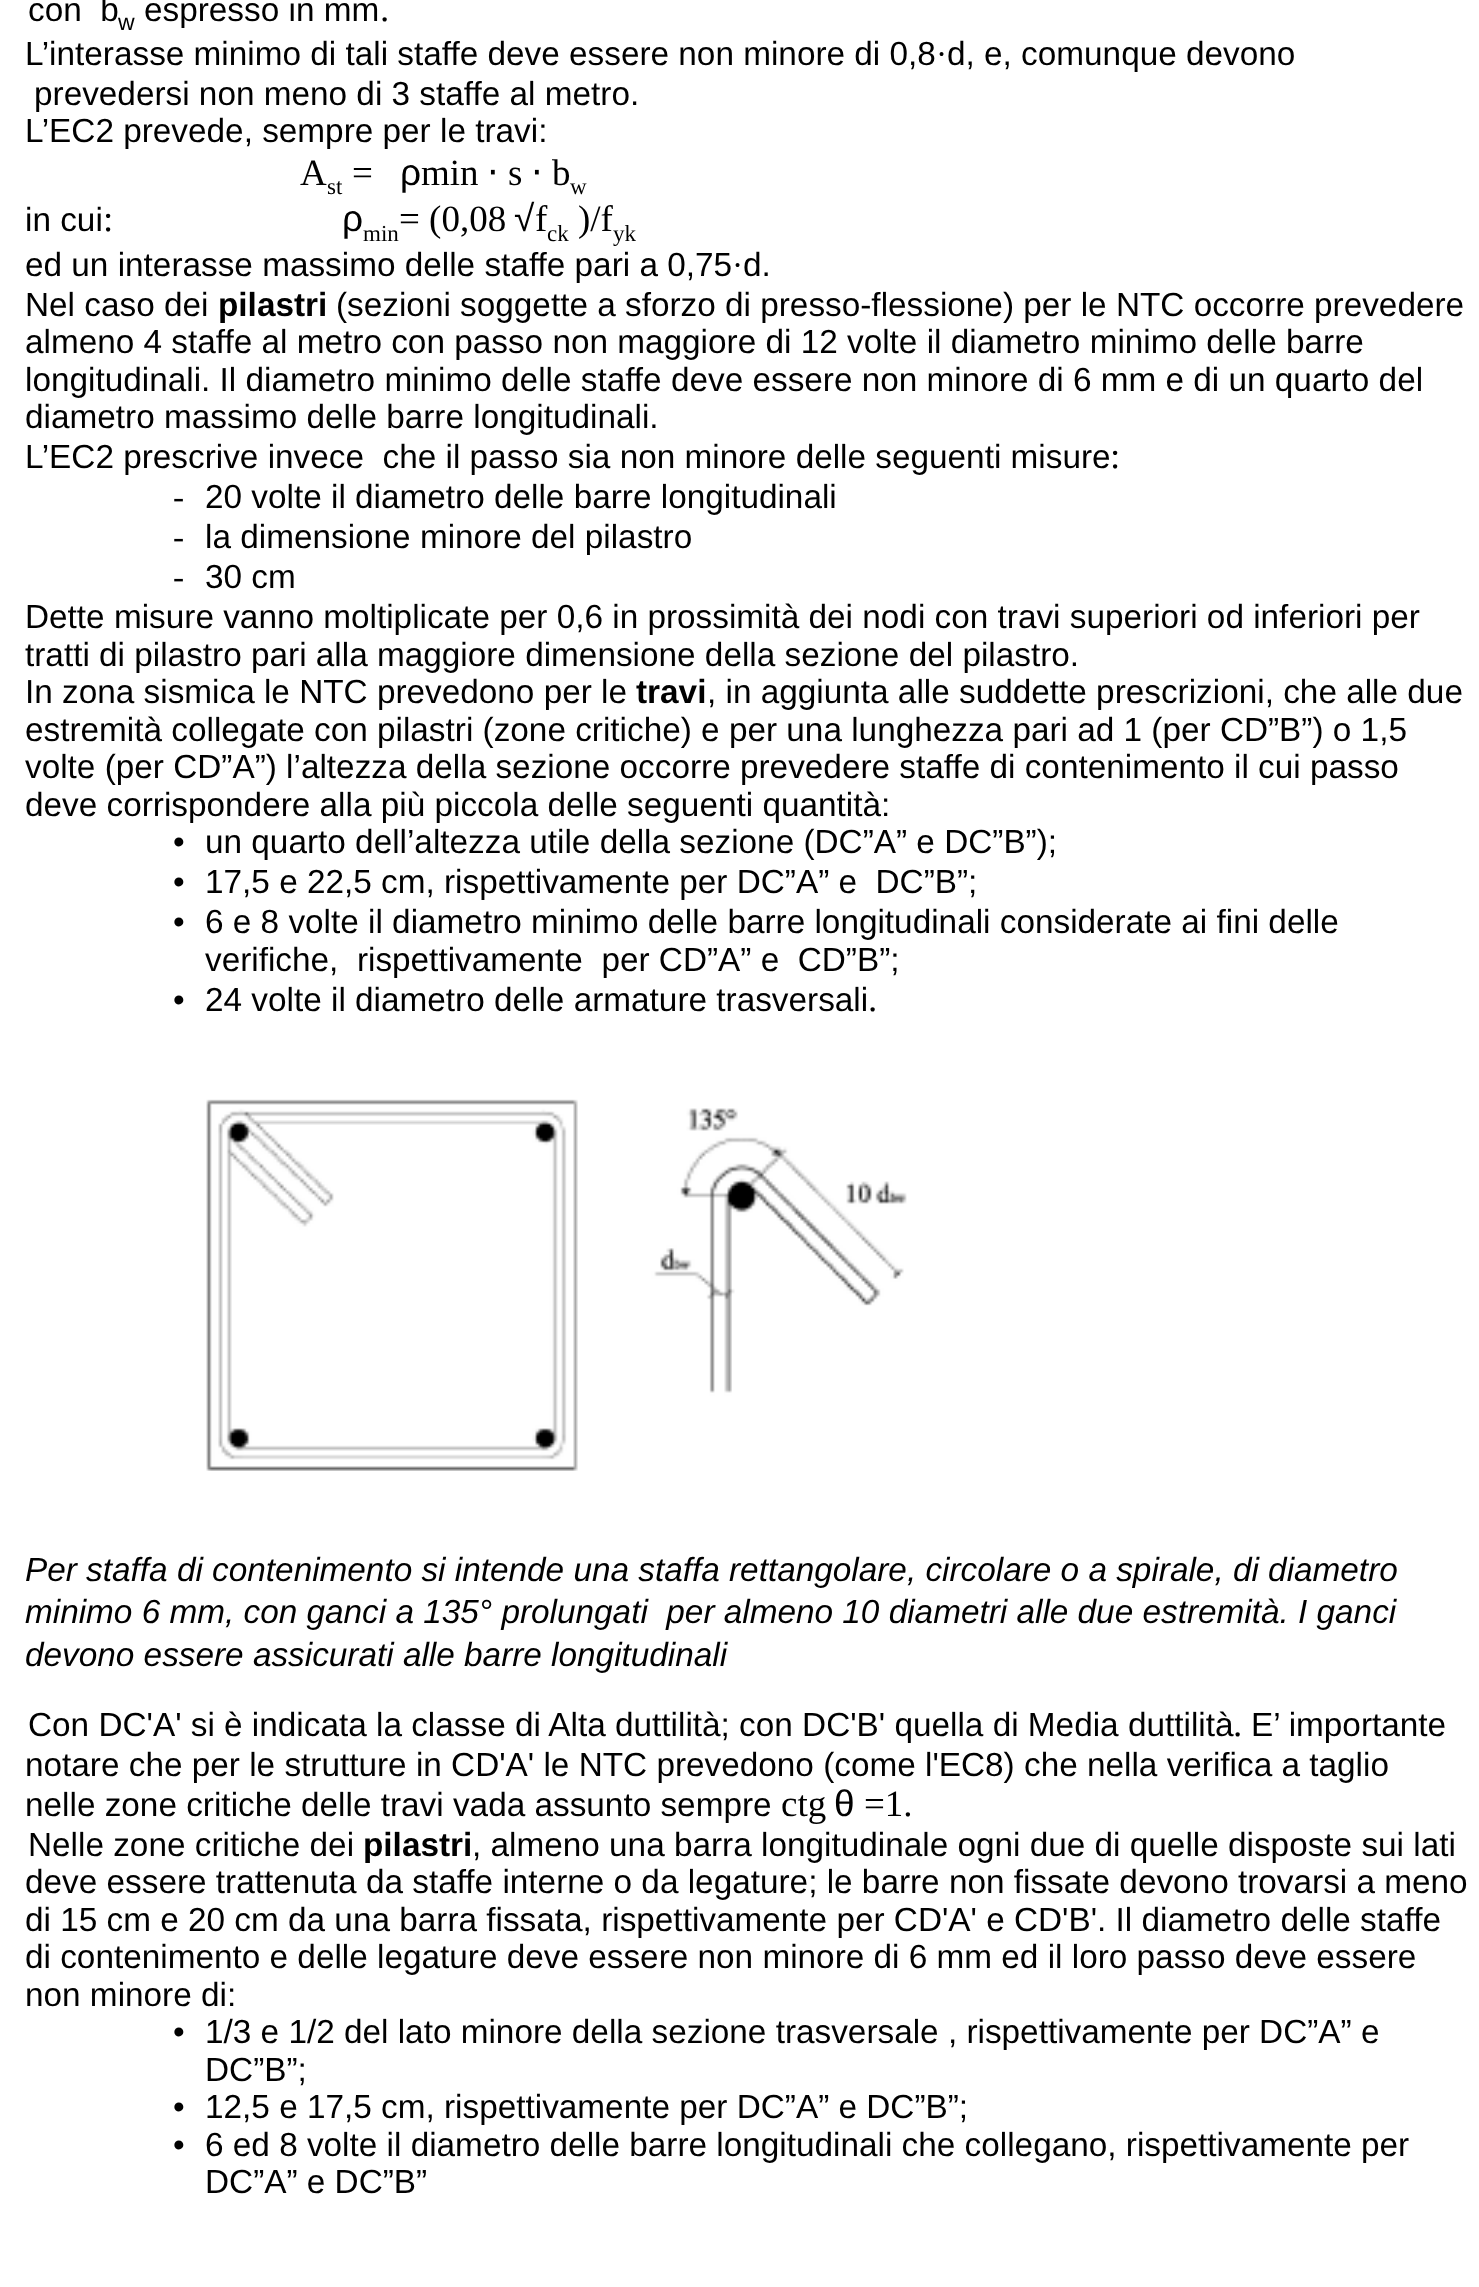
(async () => {
const canvas = document.querySelector("canvas")
canvas.width = 1479
canvas.height = 2287
const c = canvas.getContext("2d")
c.miterLimit = 4
c.fontKerning = "normal"
function T(s,x,y){c.fillText(s,x,y)}
function R(x,y,w,h){c.fillRect(x,y,w,h)}
async function I(src,x,y,w,h){const img=new Image();img.src=src;await img.decode();c.drawImage(img,x,y,w,h)}
c.fillStyle="#fff"
R(0,0,1479,2287)
c.font="33.35px Liberation Sans"
c.fillStyle="#000"
T("con  b",28,21)
c.font="23px Liberation Sans"
T("w",118,30)
c.font="33.35px Liberation Sans"
T("espresso in mm",144,21)
c.font="37px Liberation Serif"
T(".",380,21)
c.font="33.35px Liberation Sans"
T("L’interasse minimo di tali staffe deve essere non minore di 0,8",25,65)
c.font="33.35px Liberation Serif"
T("·",936,65)
c.font="33.35px Liberation Sans"
T("d, e, comunque devono",947,65)
T("prevedersi non meno di 3 staffe al metro.",34,105)
T("L’EC2 prevede, sempre per le travi:",25,142)
c.font="37px Liberation Serif"
T("A",300,185)
T("=",352,185)
c.font="37px Liberation Sans"
T("ρ",400,185)
c.font="37px Liberation Serif"
T("min",421,185)
c.font="37px DejaVu Sans"
T("⋅",487,185)
c.font="37px Liberation Serif"
T("s",508,185)
c.font="37px DejaVu Sans"
T("⋅",531,185)
c.font="37px Liberation Serif"
T("b",552,185)
c.font="23px Liberation Serif"
T("st",327,194)
T("w",570,194)
c.font="33.35px Liberation Sans"
T("in cui",25,231)
c.font="37px Liberation Serif"
T(":",103,231)
c.font="37px Liberation Sans"
T("ρ",342,231)
c.font="23px Liberation Serif"
T("min",363,241)
c.font="37px Liberation Serif"
T("= (0,08",399,231)
c.font="37px Liberation Sans"
T("√",514,231)
c.font="37px Liberation Serif"
T("f",535,231)
c.font="23px Liberation Serif"
T("ck",547,241)
c.font="37px Liberation Serif"
T(")/f",578,231)
c.font="23px Liberation Serif"
T("yk",613,241)
c.font="33.35px Liberation Sans"
T("ed un interasse massimo delle staffe pari a 0,75",25,276)
c.font="33.35px Liberation Serif"
T("·",732,276)
c.font="33.35px Liberation Sans"
T("d.",743,276)
T("Nel caso dei",25,316)
c.font="bold 33.35px Liberation Sans"
T("pilastri",218,316)
c.font="33.35px Liberation Sans"
T("(sezioni soggette a sforzo di presso-flessione) per le NTC occorre prevedere",336,316)
T("almeno 4 staffe al metro con passo non maggiore di 12 volte il diametro minimo delle barre",25,353)
T("longitudinali. Il diametro minimo delle staffe deve essere non minore di 6 mm e di un quarto del",25,391)
T("diametro massimo delle barre longitudinali.",25,428)
T("L’EC2 prescrive invece  che il passo sia non minore delle seguenti misure",25,468)
c.font="37px Liberation Serif"
T(":",1110,468)
c.font="33.35px Liberation Serif"
T("-",173,508)
c.font="33.35px Liberation Sans"
T("20 volte il diametro delle barre longitudinali",205,508)
c.font="33.35px Liberation Serif"
T("-",173,548)
c.font="33.35px Liberation Sans"
T("la dimensione minore del pilastro",205,548)
c.font="33.35px Liberation Serif"
T("-",173,588)
c.font="33.35px Liberation Sans"
T("30 cm",205,588)
T("Dette misure vanno moltiplicate per 0,6 in prossimità dei nodi con travi superiori od inferiori per",25,628)
T("tratti di pilastro pari alla maggiore dimensione della sezione del pilastro.",25,666)
T("In zona sismica le NTC prevedono per le",25,703)
c.font="bold 33.35px Liberation Sans"
T("travi",636,703)
c.font="33.35px Liberation Sans"
T(", in aggiunta alle suddette prescrizioni, che alle due",707,703)
T("estremità collegate con pilastri (zone critiche) e per una lunghezza pari ad 1 (per CD”B”) o 1,5",25,741)
T("volte (per CD”A”) l’altezza della sezione occorre prevedere staffe di contenimento il cui passo",25,778)
T("deve corrispondere alla più piccola delle seguenti quantità:",25,816)
T("•",173,853)
T("un quarto dell’altezza utile della sezione (DC”A” e DC”B”);",205,853)
T("•",173,893)
T("17,5 e 22,5 cm, rispettivamente per DC”A” e  DC”B”;",205,893)
T("•",173,933)
T("6 e 8 volte il diametro minimo delle barre longitudinali considerate ai fini delle",205,933)
T("verifiche,  rispettivamente  per CD”A” e  CD”B”;",205,971)
T("•",173,1011)
T("24 volte il diametro delle armature trasversali",205,1011)
c.font="37px Liberation Serif"
T(".",868,1011)
await I("1.png",206,1099,701,372)
c.font="italic 33.35px Liberation Sans"
T("Per staffa di contenimento si intende una staffa rettangolare, circolare o a spirale, di diametro",25,1581)
T("minimo 6 mm, con ganci a 135° prolungati  per almeno 10 diametri alle due estremità. I ganci",25,1623)
T("devono essere assicurati alle barre longitudinali",25,1666)
c.font="33.35px Liberation Sans"
T("Con DC'A' si è indicata la classe di Alta duttilità; con DC'B' quella di Media duttilità",28,1736)
c.font="37px Liberation Serif"
T(".",1233,1736)
c.font="33.35px Liberation Sans"
T("E’ importante",1251,1736)
T("notare che per le strutture in CD'A' le NTC prevedono (come l'EC8) che nella verifica a taglio",25,1776)
T("nelle zone critiche delle travi vada assunto sempre",25,1816)
c.font="37px Liberation Serif"
T("ctg",781,1816)
c.font="37px Liberation Sans"
T("θ",834,1816)
c.font="37px Liberation Serif"
T("=1.",864,1816)
c.font="33.35px Liberation Sans"
T("Nelle zone critiche dei",28,1856)
c.font="bold 33.35px Liberation Sans"
T("pilastri",363,1856)
c.font="33.35px Liberation Sans"
T(", almeno una barra longitudinale ogni due di quelle disposte sui lati",472,1856)
T("deve essere trattenuta da staffe interne o da legature; le barre non fissate devono trovarsi a meno",25,1893)
T("di 15 cm e 20 cm da una barra fissata, rispettivamente per CD'A' e CD'B'. Il diametro delle staffe",25,1931)
T("di contenimento e delle legature deve essere non minore di 6 mm ed il loro passo deve essere",25,1968)
T("non minore di:",25,2006)
T("•",173,2043)
T("1/3 e 1/2 del lato minore della sezione trasversale , rispettivamente per DC”A” e",205,2043)
T("DC”B”;",205,2081)
T("•",173,2118)
T("12,5 e 17,5 cm, rispettivamente per DC”A” e DC”B”;",205,2118)
T("•",173,2156)
T("6 ed 8 volte il diametro delle barre longitudinali che collegano, rispettivamente per",205,2156)
T("DC”A” e DC”B”",205,2193)
})()
